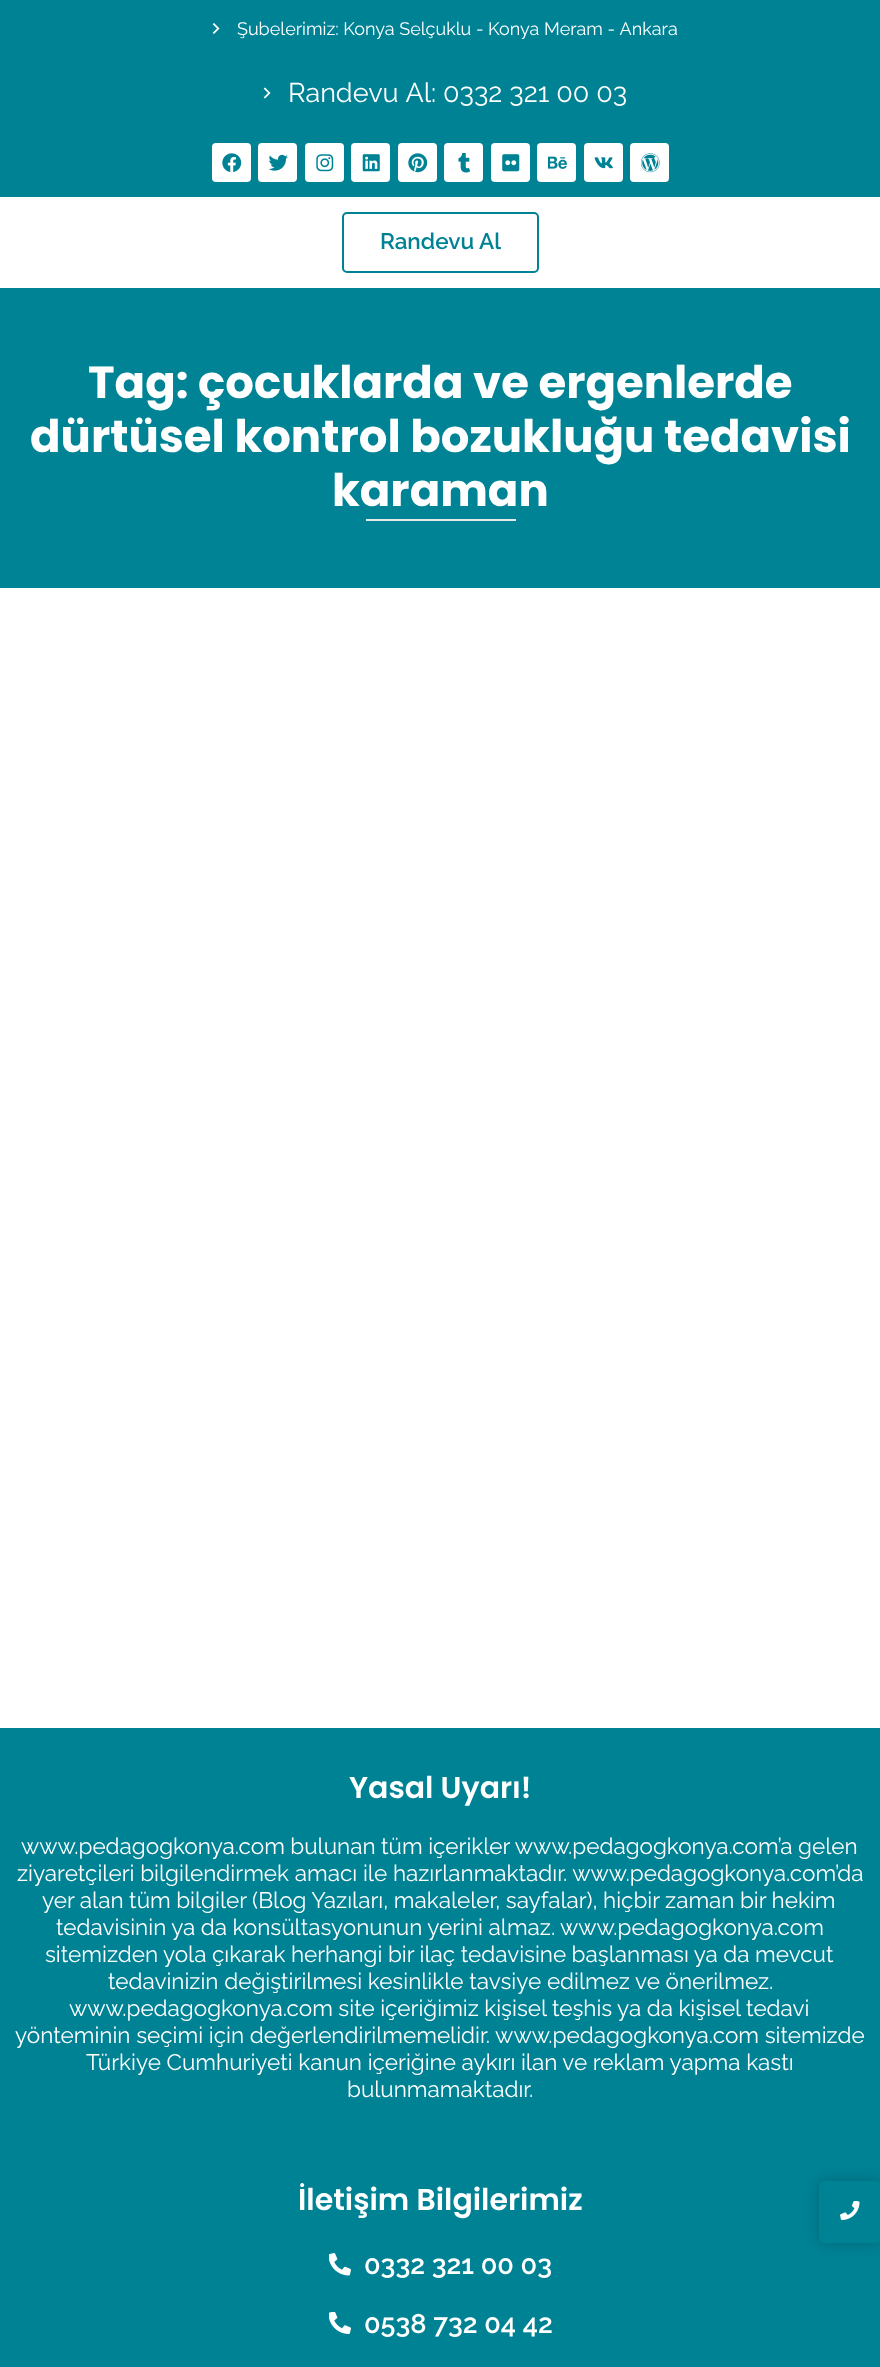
(async () => {
const canvas = document.querySelector("canvas")
canvas.width = 880
canvas.height = 2367
const c = canvas.getContext("2d")
c.miterLimit = 4
c.fontKerning = "normal"
function T(s,x,y){c.fillText(s,x,y)}
function R(x,y,w,h){c.fillRect(x,y,w,h)}
function Q(x,y,w,h,r){c.beginPath();c.roundRect(x,y,w,h,r);c.fill()}
async function I(src,x,y,w,h){const img=new Image();img.src=src;await img.decode();c.drawImage(img,x,y,w,h)}
c.fillStyle="#fff"
R(0,0,880,2367)
c.fillStyle="#008295"
R(0,0,880,197)
await I("1.png",212,23,8,11)
c.font="18px Raleway"
c.fillStyle="#fff"
T("Şubelerimiz: Konya Selçuklu - Konya Meram - Ankara",237,35)
await I("2.png",263,87,8,12)
c.font="27px Raleway"
T("Randevu Al: 0332 321 00 03",288,102)
Q(212,143,39,39,4)
await I("3.png",222,153,20,19)
Q(258,143,39,39,4)
await I("4.png",269,154,19,17)
Q(305,143,39,39,4)
await I("5.png",316,154,18,18)
Q(351,143,39,39,4)
await I("6.png",362,154,18,18)
Q(398,143,39,39,4)
await I("7.png",408,153,20,20)
Q(444,143,39,39,4)
await I("8.png",458,153,12,20)
Q(491,143,39,39,4)
await I("9.png",502,154,18,18)
Q(537,143,39,39,4)
await I("10.png",548,156,19,13)
Q(584,143,39,39,4)
await I("11.png",594,157,19,12)
Q(630,143,39,39,4)
await I("12.png",641,153,19,20)
c.beginPath()
c.roundRect(343,213,195,59,4)
c.strokeStyle="#008295"
c.lineWidth=2
c.stroke()
c.font="600 22.5px Raleway"
c.fillStyle="#008295"
T("Randevu Al",380,249)
c.fillStyle="#008495"
R(0,288,880,300)
c.font="bold 45px Poppins"
c.fillStyle="#fff"
T("Tag: çocuklarda ve ergenlerde",88,398)
T("dürtüsel kontrol bozukluğu tedavisi",30,452)
T("karaman",332,506)
c.fillStyle="#e8e8e8"
R(366,519,150,2)
c.fillStyle="#008295"
R(0,1728,880,639)
c.font="600 30px Poppins"
c.fillStyle="#fff"
T("Yasal Uyarı!",349,1798)
c.wordSpacing="-0.25px"
c.font="22.5px Raleway"
T("www.pedagogkonya.com bulunan tüm içerikler www.pedagogkonya.com’a gelen",21,1854)
c.wordSpacing="0px"
T("ziyaretçileri bilgilendirmek amacı ile hazırlanmaktadır. www.pedagogkonya.com’da",17,1881)
c.wordSpacing="-0.25px"
T("yer alan tüm bilgiler (Blog Yazıları, makaleler, sayfalar), hiçbir zaman bir hekim",42,1908)
T("tedavisinin ya da konsültasyonunun yerini almaz. www.pedagogkonya.com",56,1935)
T("sitemizden yola çıkarak herhangi bir ilaç tedavisine başlanması ya da mevcut",45,1962)
c.wordSpacing="0px"
T("tedavinizin değiştirilmesi kesinlikle tavsiye edilmez ve önerilmez.",108,1989)
c.wordSpacing="-0.25px"
T("www.pedagogkonya.com site içeriğimiz kişisel teşhis ya da kişisel tedavi",69,2016)
c.wordSpacing="0px"
T("yönteminin seçimi için değerlendirilmemelidir. www.pedagogkonya.com sitemizde",15,2043)
c.wordSpacing="-0.1px"
T("Türkiye Cumhuriyeti kanun içeriğine aykırı ilan ve reklam yapma kastı",86,2070)
c.wordSpacing="0px"
T("bulunmamaktadır.",347,2097)
c.font="600 30px Poppins"
T("İletişim Bilgilerimiz",298,2210)
await I("13.png",329,2253,22,23)
c.font="600 27px Raleway"
T("0332 321 00 03",364,2274)
await I("14.png",329,2312,22,22)
T("0538 732 04 42",364,2333)
c.fillStyle="#00000033"
c.filter="blur(7.5px)"
c.beginPath()
c.roundRect(819,2181,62,62,6)
c.fill()
c.filter="none"
c.fillStyle="#008295"
Q(819,2181,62,62,6)
await I("15.png",840,2201,20,19)
})()
